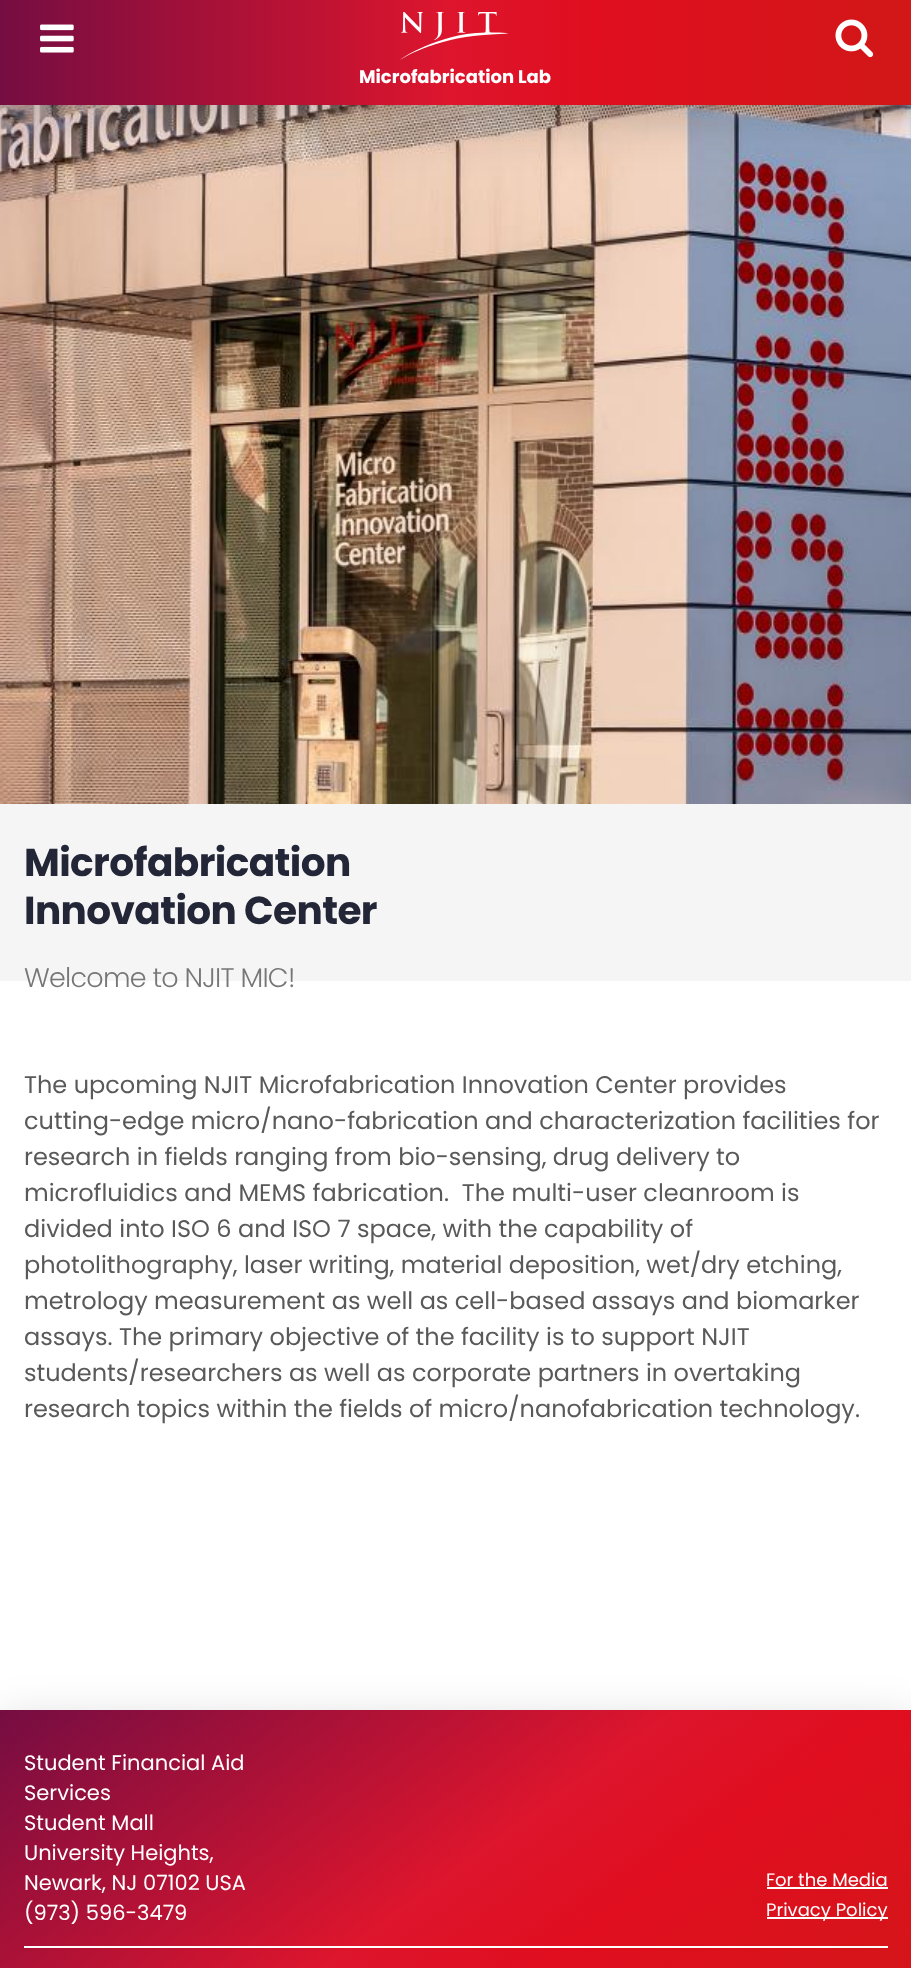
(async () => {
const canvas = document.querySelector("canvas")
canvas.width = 911
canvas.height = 1968
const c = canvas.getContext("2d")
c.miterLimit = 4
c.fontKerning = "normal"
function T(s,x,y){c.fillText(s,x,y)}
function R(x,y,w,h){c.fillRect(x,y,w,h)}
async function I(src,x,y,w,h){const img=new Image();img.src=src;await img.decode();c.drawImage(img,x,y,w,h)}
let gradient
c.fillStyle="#fff"
R(0,0,911,1968)
await I("4.png",0,105,911,699)
c.fillStyle="#00000033"
c.filter="blur(24px)"
c.beginPath()
c.rect(0,15,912,105)
c.fill()
c.filter="none"
gradient = c.createLinearGradient(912,53,0,52)
gradient.addColorStop(0,"#d11717")
gradient.addColorStop(.35,"#e00e1f")
gradient.addColorStop(.51,"#dd152d")
gradient.addColorStop(1,"#750d42")
c.fillStyle = gradient
R(0,0,911,105)
await I("1.png",40,24,34,29)
await I("2.png",835,19,39,39)
await I("3.png",400,12,108,48)
c.font="bold 18px Poppins"
c.fillStyle="#fff"
T("Microfabrication Lab",359,83)
c.fillStyle="#f5f5f5"
R(0,804,911,177)
c.letterSpacing="-0.6px"
c.font="bold 39px Poppins"
c.fillStyle="#232636"
T("Microfabrication",24,876)
T("Innovation Center",24,924)
c.letterSpacing="-0.75px"
c.font="300 27px Poppins"
c.fillStyle="#767676"
T("Welcome to NJIT MIC!",24,987)
c.letterSpacing="0px"
c.font="24px Poppins"
c.fillStyle="#595959"
T("The upcoming NJIT Microfabrication Innovation Center provides",24,1093)
T("cutting-edge micro/nano-fabrication and characterization facilities for",24,1129)
T("research in fields ranging from bio-sensing, drug delivery to",24,1165)
T("microfluidics and MEMS fabrication.  The multi-user cleanroom is",24,1201)
T("divided into ISO 6 and ISO 7 space, with the capability of",24,1237)
T("photolithography, laser writing, material deposition, wet/dry etching,",24,1273)
T("metrology measurement as well as cell-based assays and biomarker",24,1309)
T("assays. The primary objective of the facility is to support NJIT",24,1345)
T("students/researchers as well as corporate partners in overtaking",24,1381)
T("research topics within the fields of micro/nanofabrication technology.",24,1417)
c.fillStyle="#00000033"
c.filter="blur(24px)"
c.beginPath()
c.rect(0,1725,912,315)
c.fill()
c.filter="none"
gradient = c.createLinearGradient(694,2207,218,1552)
gradient.addColorStop(0,"#d11717")
gradient.addColorStop(.35,"#e00e1f")
gradient.addColorStop(.51,"#dd152d")
gradient.addColorStop(1,"#750d42")
c.fillStyle = gradient
R(0,1710,911,258)
c.font="21px Poppins"
c.fillStyle="#fff"
T("Student Financial Aid",24,1770)
T("Services",24,1800)
T("Student Mall",24,1830)
T("University Heights,",24,1860)
T("Newark, NJ 07102 USA",24,1890)
T("(973) 596-3479",24,1920)
c.font="18px Poppins"
T("For the Media",766,1886)
R(767,1887,121,2)
R(767,1917,121,2)
T("Privacy Policy",766,1916)
R(24,1946,864,2)
})()
